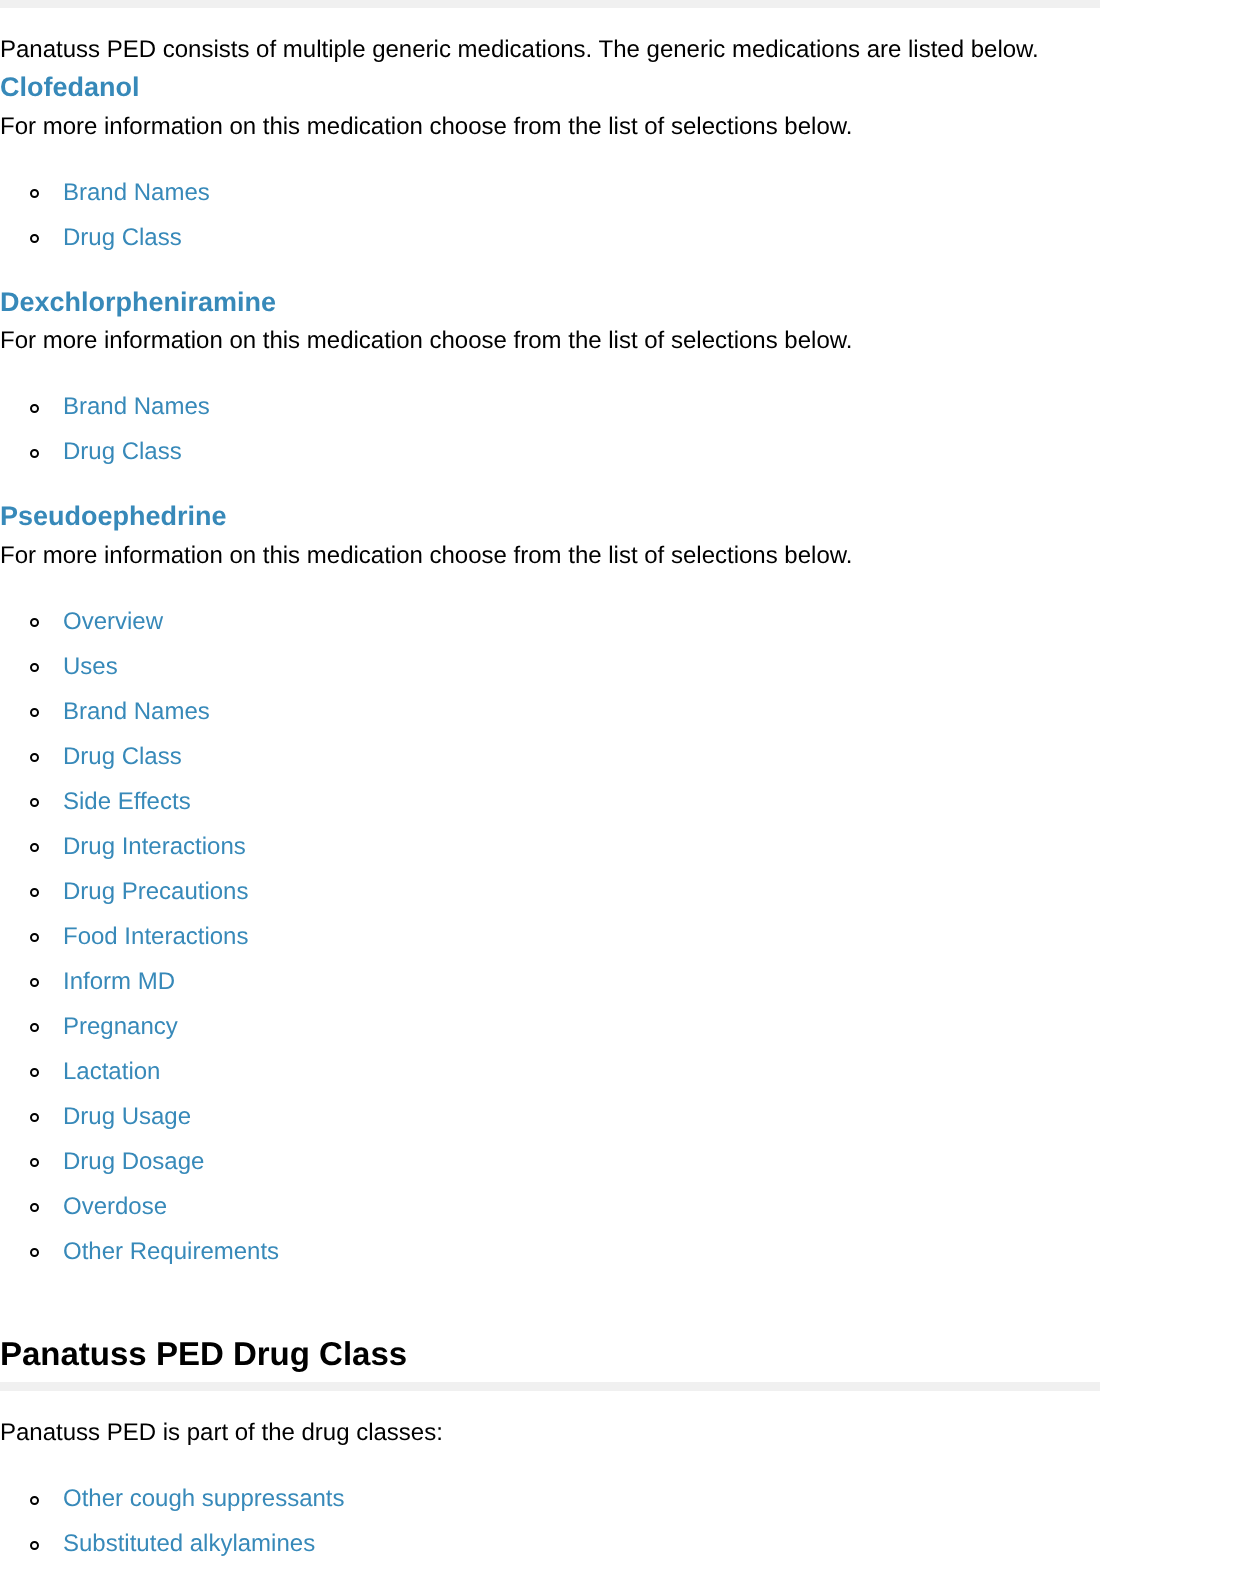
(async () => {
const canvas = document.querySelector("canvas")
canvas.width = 1237
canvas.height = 1579
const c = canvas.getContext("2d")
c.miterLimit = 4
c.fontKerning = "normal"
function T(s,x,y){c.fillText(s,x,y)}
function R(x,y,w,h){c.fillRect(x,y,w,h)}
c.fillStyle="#fff"
R(0,0,1237,1579)
c.fillStyle="#f0f0f0"
R(0,0,1100,8)
c.font="24px Liberation Sans"
c.fillStyle="#000"
T("Panatuss PED consists of multiple generic medications. The generic medications are listed below.",0,57)
c.font="bold 27px Liberation Sans"
c.fillStyle="#3789b9"
T("Clofedanol",0,96)
c.font="24px Liberation Sans"
c.fillStyle="#000"
T("For more information on this medication choose from the list of selections below.",0,134)
c.beginPath()
c.arc(34.5,193.5,3.5,0,7)
c.strokeStyle="#000"
c.lineWidth=2
c.stroke()
c.fillStyle="#3789b9"
T("Brand Names",63,200)
c.beginPath()
c.arc(34.5,238.5,3.5,0,7)
c.stroke()
T("Drug Class",63,245)
c.font="bold 27px Liberation Sans"
T("Dexchlorpheniramine",0,311)
c.font="24px Liberation Sans"
c.fillStyle="#000"
T("For more information on this medication choose from the list of selections below.",0,348)
c.beginPath()
c.arc(34.5,408.5,3.5,0,7)
c.stroke()
c.fillStyle="#3789b9"
T("Brand Names",63,414)
c.beginPath()
c.arc(34.5,453.5,3.5,0,7)
c.stroke()
T("Drug Class",63,459)
c.font="bold 27px Liberation Sans"
T("Pseudoephedrine",0,525)
c.font="24px Liberation Sans"
c.fillStyle="#000"
T("For more information on this medication choose from the list of selections below.",0,563)
c.beginPath()
c.arc(34.5,622.5,3.5,0,7)
c.stroke()
c.fillStyle="#3789b9"
T("Overview",63,629)
c.beginPath()
c.arc(34.5,667.5,3.5,0,7)
c.stroke()
T("Uses",63,674)
c.beginPath()
c.arc(34.5,712.5,3.5,0,7)
c.stroke()
T("Brand Names",63,719)
c.beginPath()
c.arc(34.5,757.5,3.5,0,7)
c.stroke()
T("Drug Class",63,764)
c.beginPath()
c.arc(34.5,802.5,3.5,0,7)
c.stroke()
T("Side Effects",63,809)
c.beginPath()
c.arc(34.5,847.5,3.5,0,7)
c.stroke()
T("Drug Interactions",63,854)
c.beginPath()
c.arc(34.5,892.5,3.5,0,7)
c.stroke()
T("Drug Precautions",63,899)
c.beginPath()
c.arc(34.5,937.5,3.5,0,7)
c.stroke()
T("Food Interactions",63,944)
c.beginPath()
c.arc(34.5,982.5,3.5,0,7)
c.stroke()
T("Inform MD",63,989)
c.beginPath()
c.arc(34.5,1027.5,3.5,0,7)
c.stroke()
T("Pregnancy",63,1034)
c.beginPath()
c.arc(34.5,1072.5,3.5,0,7)
c.stroke()
T("Lactation",63,1079)
c.beginPath()
c.arc(34.5,1117.5,3.5,0,7)
c.stroke()
T("Drug Usage",63,1124)
c.beginPath()
c.arc(34.5,1162.5,3.5,0,7)
c.stroke()
T("Drug Dosage",63,1169)
c.beginPath()
c.arc(34.5,1207.5,3.5,0,7)
c.stroke()
T("Overdose",63,1214)
c.beginPath()
c.arc(34.5,1252.5,3.5,0,7)
c.stroke()
T("Other Requirements",63,1259)
c.fillStyle="#f0f0f0"
R(0,1382,1100,9)
c.font="bold 33px Liberation Sans"
c.fillStyle="#000"
T("Panatuss PED Drug Class",0,1365)
c.font="24px Liberation Sans"
T("Panatuss PED is part of the drug classes:",0,1440)
c.beginPath()
c.arc(34.5,1500.5,3.5,0,7)
c.stroke()
c.fillStyle="#3789b9"
T("Other cough suppressants",63,1506)
c.beginPath()
c.arc(34.5,1545.5,3.5,0,7)
c.stroke()
T("Substituted alkylamines",63,1551)
})()
